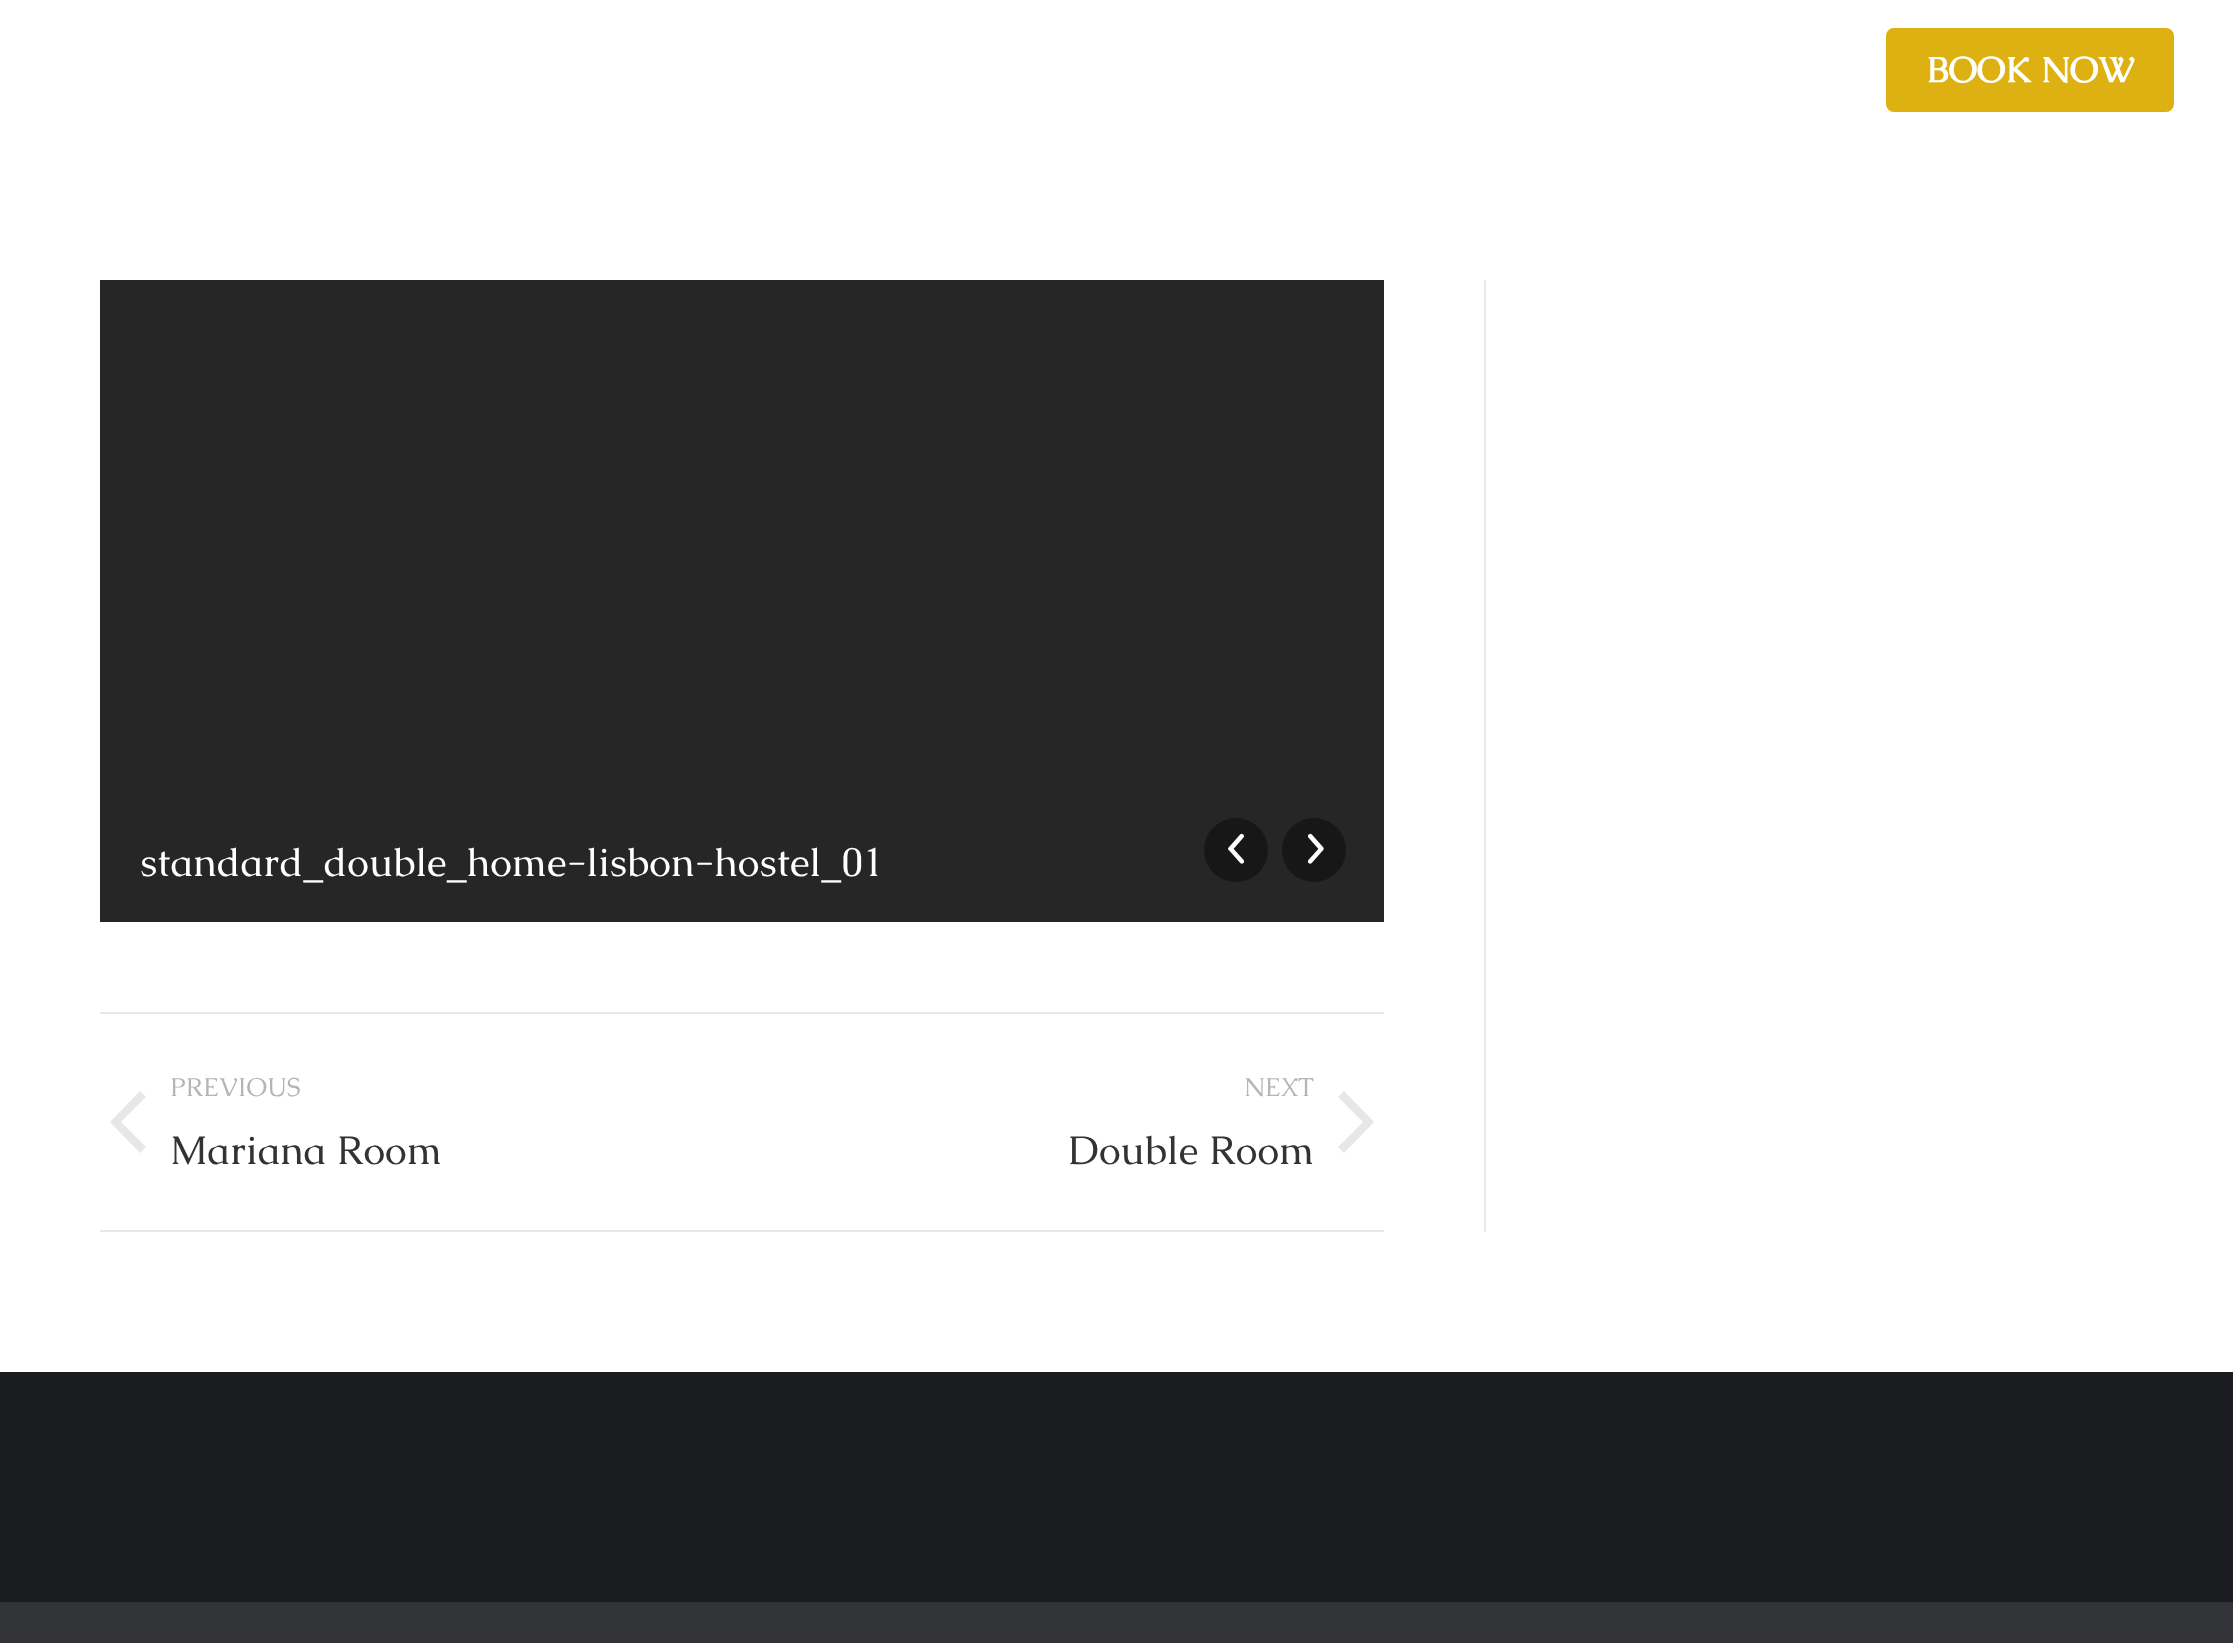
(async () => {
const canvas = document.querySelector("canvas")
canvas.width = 2233
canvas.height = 1643
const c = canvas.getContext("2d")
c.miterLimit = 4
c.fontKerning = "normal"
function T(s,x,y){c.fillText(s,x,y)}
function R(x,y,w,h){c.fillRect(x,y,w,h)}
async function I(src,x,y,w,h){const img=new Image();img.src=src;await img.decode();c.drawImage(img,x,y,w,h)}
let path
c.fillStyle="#fff"
R(0,0,2233,1643)
c.fillStyle="#ddb111"
c.beginPath()
c.roundRect(1890,32,280,76,4)
c.fill()
c.strokeStyle="#ddb111"
c.lineWidth=8
c.stroke()
c.font="bold 36px Caudex"
c.fillStyle="#fff"
T("BOOK NOW",1927,82)
c.fillStyle="#262626"
R(100,280,1284,642)
c.font="40px Caudex"
c.fillStyle="#fff"
T("standard_double_home-lisbon-hostel_01",140,876)
c.fillStyle="#171717"
c.beginPath()
c.arc(1236,850,32,0,7)
c.fill()
await I("1.png",1228,833,17,31)
c.beginPath()
c.arc(1314,850,32,0,7)
c.fill()
await I("2.png",1307,833,17,31)
c.fillStyle="#e7e7e7"
R(100,1012,1284,2)
R(100,1230,1284,2)
c.font="26px Caudex"
c.fillStyle="#b4b5bb"
T("PREVIOUS",170,1096)
c.fillStyle="#e7e7e7"
path = new Path2D("M121 1122l25-25l-6-6l-30 31l30 31l6-6z")
c.fill(path)
c.font="40px Caudex"
c.fillStyle="#333"
T("Mariana Room",170,1164)
c.font="26px Caudex"
c.fillStyle="#b4b5bb"
T("NEXT",1244,1096)
c.font="40px Caudex"
c.fillStyle="#333"
T("Double Room",1068,1164)
c.fillStyle="#e7e7e7"
path = new Path2D("M1363 1122l-25-25l6-6l30 31l-30 31l-6-6z")
c.fill(path)
R(1484,280,2,952)
c.fillStyle="#1a1c20"
R(0,1372,2233,230)
c.fillStyle="#313336"
R(0,1602,2233,41)
})()
